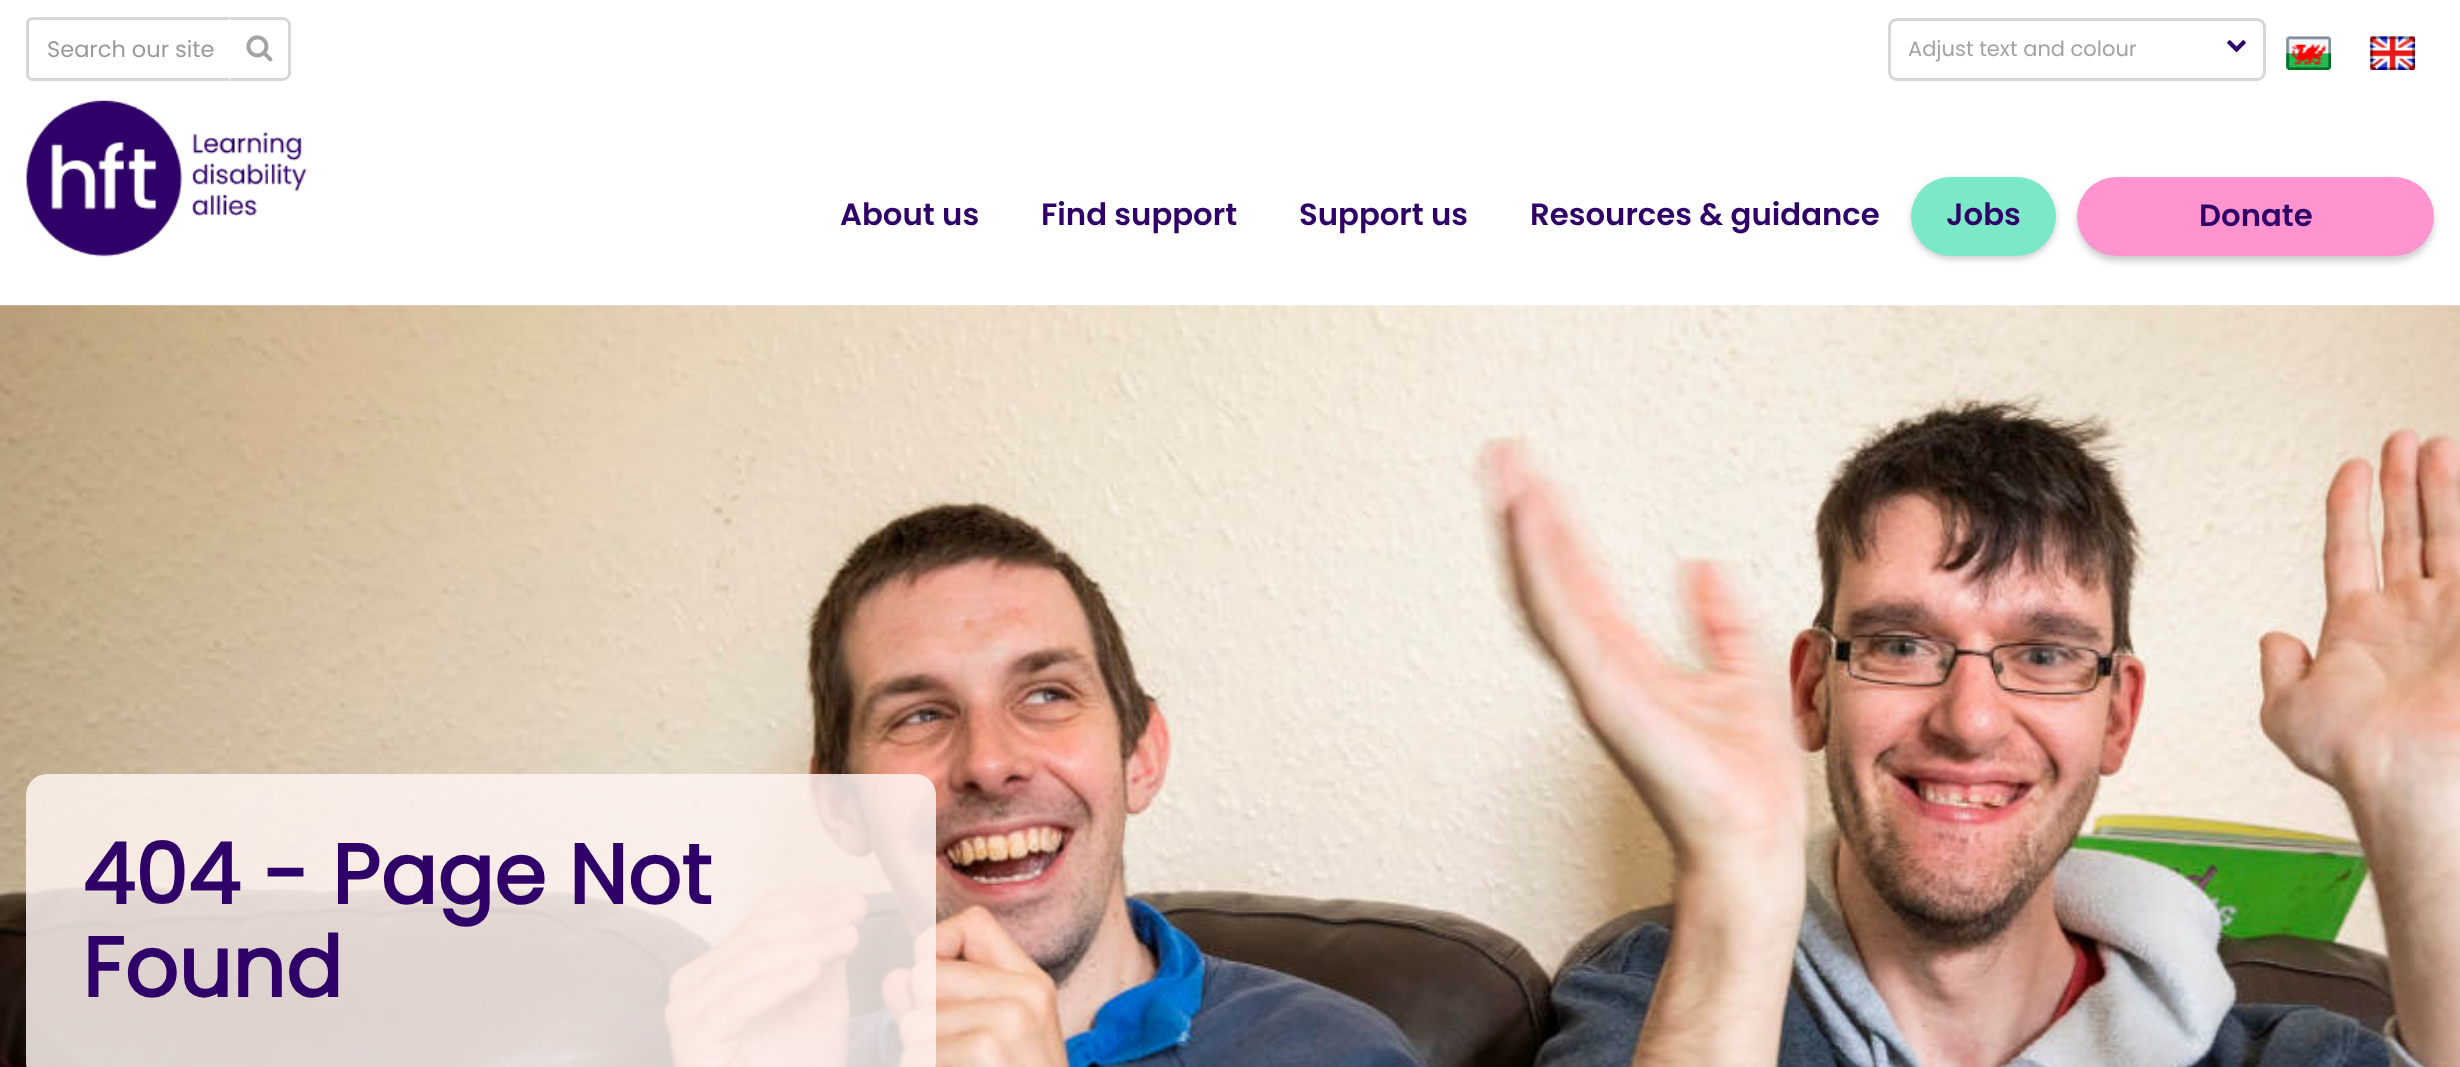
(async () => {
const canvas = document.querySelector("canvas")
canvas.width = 2460
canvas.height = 1067
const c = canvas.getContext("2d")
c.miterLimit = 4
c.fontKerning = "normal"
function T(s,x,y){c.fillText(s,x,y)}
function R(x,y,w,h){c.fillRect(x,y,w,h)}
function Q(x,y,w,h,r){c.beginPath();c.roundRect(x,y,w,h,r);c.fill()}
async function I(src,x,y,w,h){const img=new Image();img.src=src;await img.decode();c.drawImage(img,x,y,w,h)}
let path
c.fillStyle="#fff"
R(0,0,2460,1067)
c.fillStyle="#d6d6d6"
path = new Path2D("M33 17h198v64h-198c-4 0-7-3-7-7v-50c0-4 3-7 7-7zm0 3h198v58h-198c-2 0-4-1-4-4v-50c0-3 2-4 4-4z")
c.fill(path,"evenodd")
c.font="22.5px Poppins"
c.fillStyle="#999"
T("Search our site",47,57)
c.fillStyle="#fff"
c.beginPath()
c.roundRect(229,18,62,63,[0,9,9,0])
c.fill()
c.fillStyle="#d6d6d6"
path = new Path2D("M230 17h52c5 0 9 4 9 8v48c0 4-4 8-9 8h-52zm0 3h52c4 0 6 2 6 5v48c0 3-2 5-6 5h-52z")
c.fill(path,"evenodd")
await I("1.png",246,35,27,27)
c.beginPath()
c.roundRect(1889.5,19.5,375,60,7.5)
c.strokeStyle="#d6d6d6"
c.lineWidth=3
c.stroke()
c.font="21px Poppins"
c.fillStyle="#a3a3a3"
T("Adjust text and colour",1908,56)
await I("2.png",2227,40,19,13)
await I("3.png",2286,36,45,34)
await I("4.png",2370,36,45,34)
await I("5.png",26,100,281,157)
c.font="600 30.75px Poppins"
c.fillStyle="#300069"
T("About us",840,225)
T("Find support",1041,225)
T("Support us",1299,225)
T("Resources & guidance",1530,225)
c.fillStyle="#00000033"
c.filter="blur(3.5px)"
c.beginPath()
c.roundRect(1911,180,145,79,39.5)
c.fill()
c.filter="none"
c.fillStyle="#7be8c8"
Q(1911,177,145,79,39.5)
c.fillStyle="#300069"
T("Jobs",1946,225)
c.fillStyle="#00000033"
c.filter="blur(3.5px)"
c.beginPath()
c.roundRect(2077,182,357,79,39.5)
c.fill()
c.filter="none"
c.fillStyle="#ff94cf"
Q(2077,177,357,79,39.5)
c.fillStyle="#300069"
T("Donate",2199,226)
await I("6.png",0,305,2460,762)
c.fillStyle="#fef3f0d9"
Q(26,774,910,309,21)
c.font="bold 84px Poppins"
c.fillStyle="#300069"
T("404 - Page Not",82,904)
T("Found",82,997)
})()
